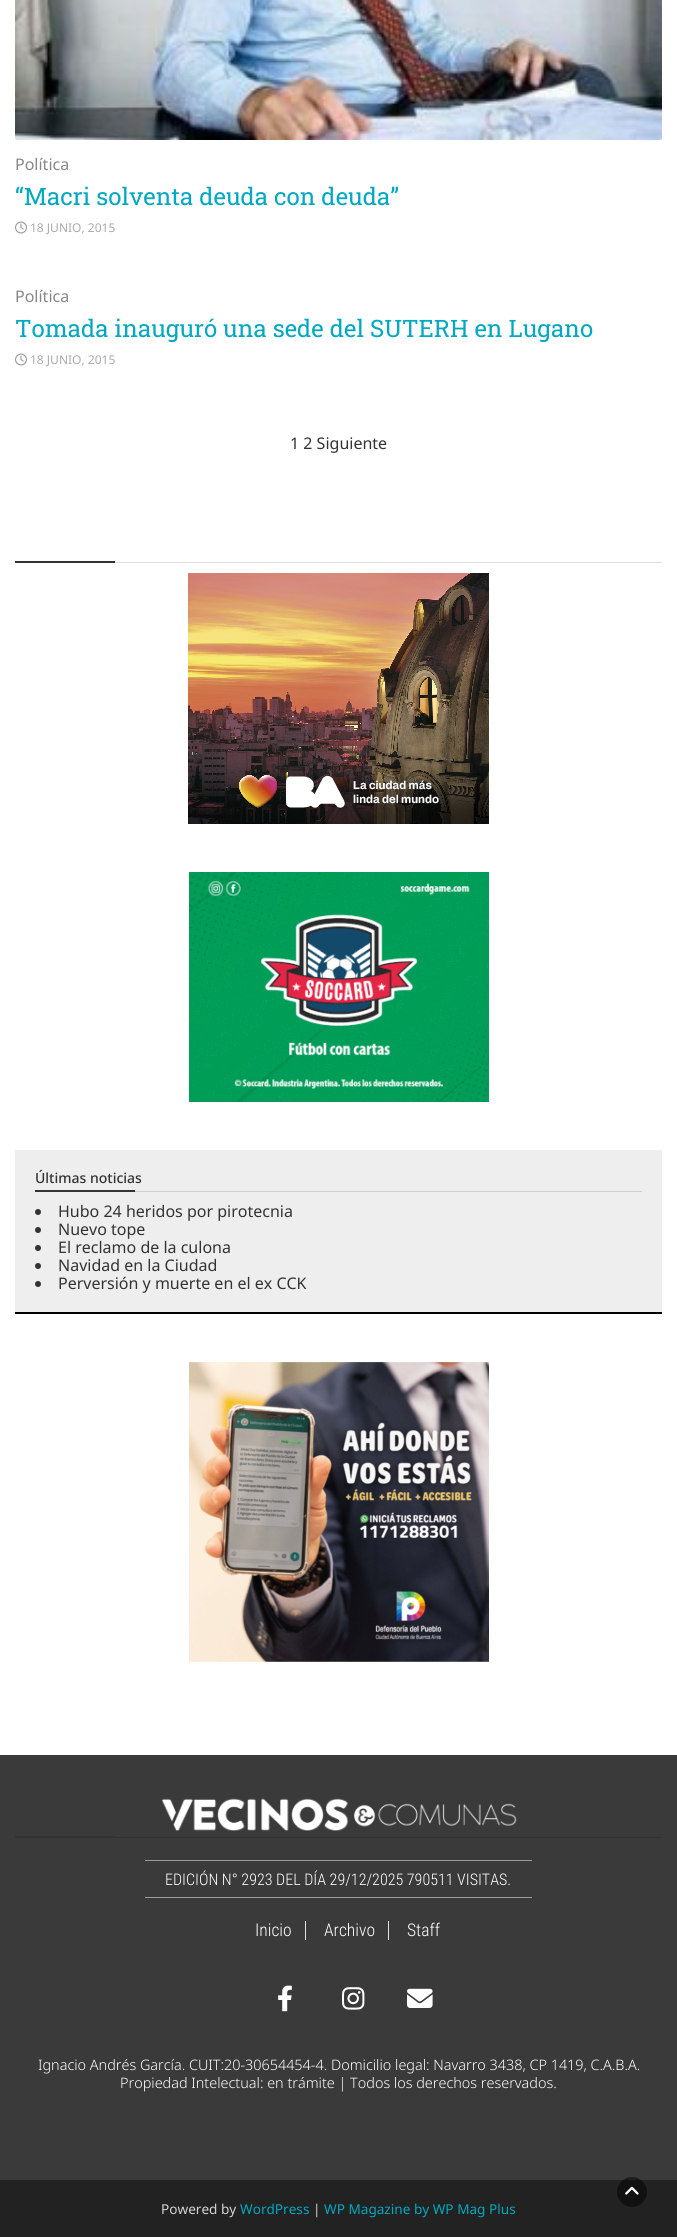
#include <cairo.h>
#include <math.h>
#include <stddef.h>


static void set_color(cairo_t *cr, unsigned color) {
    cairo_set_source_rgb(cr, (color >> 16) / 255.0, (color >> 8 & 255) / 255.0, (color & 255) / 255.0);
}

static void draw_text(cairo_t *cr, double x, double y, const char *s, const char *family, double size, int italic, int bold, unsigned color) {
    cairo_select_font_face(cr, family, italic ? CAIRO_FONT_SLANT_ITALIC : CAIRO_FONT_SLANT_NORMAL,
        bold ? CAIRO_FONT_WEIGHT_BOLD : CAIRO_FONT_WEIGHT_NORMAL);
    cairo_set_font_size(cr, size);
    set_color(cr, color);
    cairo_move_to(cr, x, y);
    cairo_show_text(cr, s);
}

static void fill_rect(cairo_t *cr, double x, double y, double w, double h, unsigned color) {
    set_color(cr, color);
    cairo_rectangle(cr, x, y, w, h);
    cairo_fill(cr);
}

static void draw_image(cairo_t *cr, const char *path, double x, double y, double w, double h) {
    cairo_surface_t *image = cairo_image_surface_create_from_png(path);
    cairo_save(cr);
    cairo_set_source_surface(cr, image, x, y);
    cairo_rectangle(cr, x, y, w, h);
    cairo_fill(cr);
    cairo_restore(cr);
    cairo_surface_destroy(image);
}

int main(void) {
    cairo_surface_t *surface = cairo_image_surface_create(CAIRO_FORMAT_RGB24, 677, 2237);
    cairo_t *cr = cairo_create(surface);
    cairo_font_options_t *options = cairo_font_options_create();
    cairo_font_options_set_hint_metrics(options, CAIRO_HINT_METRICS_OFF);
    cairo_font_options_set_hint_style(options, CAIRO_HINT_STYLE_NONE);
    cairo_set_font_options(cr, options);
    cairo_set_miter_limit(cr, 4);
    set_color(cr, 0xFFFFFF);
    cairo_paint(cr);
    draw_image(cr, "assets/img1.png", 15, 0, 647, 140);
    draw_text(cr, 15, 170, "Política", "Noto Sans", 16, 0, 0, 0x888888);
    draw_text(cr, 15, 205, "“Macri solventa deuda con deuda”", "Roboto Slab", 24, 0, 0, 0x00A8C1);
    draw_image(cr, "assets/img2.png", 15, 221, 12, 13);
    draw_text(cr, 30, 232, "18 JUNIO, 2015", "Noto Sans", 12, 0, 0, 0xAAAAAA);
    draw_text(cr, 15, 302, "Política", "Noto Sans", 16, 0, 0, 0x888888);
    draw_text(cr, 15, 337, "Tomada inauguró una sede del SUTERH en Lugano", "Roboto Slab", 24, 0, 0, 0x00A8C1);
    draw_image(cr, "assets/img2.png", 15, 353, 12, 13);
    draw_text(cr, 30, 364, "18 JUNIO, 2015", "Noto Sans", 12, 0, 0, 0xAAAAAA);
    draw_text(cr, 290, 449, "1 2 Siguiente", "Noto Sans", 16, 0, 0, 0x333333);
    fill_rect(cr, 115, 562, 547, 1, 0xDEDEDE);
    fill_rect(cr, 15, 561, 100, 2, 0x333333);
    draw_image(cr, "assets/img3.png", 188, 573, 301, 251);
    draw_image(cr, "assets/img4.png", 189, 872, 300, 230);
    fill_rect(cr, 15, 1150, 647, 162, 0xEEEEEE);
    fill_rect(cr, 15, 1312, 647, 2, 0x000000);
    fill_rect(cr, 135, 1191, 507, 1, 0xCFCFCF);
    draw_text(cr, 35, 1183, "Últimas noticias", "Noto Sans Medium", 14, 0, 0, 0x333333);
    fill_rect(cr, 35, 1190, 100, 2, 0x333333);
    cairo_new_path(cr);
    cairo_arc(cr, 38, 1212, 3, 0, 2 * M_PI);
    cairo_fill(cr);
    draw_text(cr, 58, 1217, "Hubo 24 heridos por pirotecnia", "Noto Sans", 16, 0, 0, 0x333333);
    cairo_new_path(cr);
    cairo_arc(cr, 38, 1230, 3, 0, 2 * M_PI);
    cairo_fill(cr);
    draw_text(cr, 58, 1235, "Nuevo tope", "Noto Sans", 16, 0, 0, 0x333333);
    cairo_new_path(cr);
    cairo_arc(cr, 38, 1248, 3, 0, 2 * M_PI);
    cairo_fill(cr);
    draw_text(cr, 58, 1253, "El reclamo de la culona", "Noto Sans", 16, 0, 0, 0x333333);
    cairo_new_path(cr);
    cairo_arc(cr, 38, 1266, 3, 0, 2 * M_PI);
    cairo_fill(cr);
    draw_text(cr, 58, 1271, "Navidad en la Ciudad", "Noto Sans", 16, 0, 0, 0x333333);
    cairo_new_path(cr);
    cairo_arc(cr, 38, 1284, 3, 0, 2 * M_PI);
    cairo_fill(cr);
    draw_text(cr, 58, 1289, "Perversión y muerte en el ex CCK", "Noto Sans", 16, 0, 0, 0x333333);
    draw_image(cr, "assets/img5.png", 189, 1362, 300, 300);
    fill_rect(cr, 0, 1755, 677, 425, 0x3A3A3A);
    draw_image(cr, "assets/img6.png", 161, 1798, 356, 33);
    fill_rect(cr, 115, 1837, 547, 1, 0x323232);
    fill_rect(cr, 15, 1836, 100, 2, 0x333333);
    fill_rect(cr, 145, 1860, 387, 1, 0x9D9D9D);
    fill_rect(cr, 145, 1897, 387, 1, 0x9D9D9D);
    draw_text(cr, 165, 1885, "EDICIÓN N° 2923 DEL DÍA 29/12/2025 790511 VISITAS.", "Roboto Condensed Light", 16, 0, 0, 0xFFFFFF);
    fill_rect(cr, 305, 1921, 1, 19, 0xE1E1E1);
    draw_text(cr, 255, 1936, "Inicio", "Roboto Condensed Light", 17.5, 0, 0, 0xFFFFFF);
    fill_rect(cr, 388, 1921, 1, 19, 0xE1E1E1);
    draw_text(cr, 324, 1936, "Archivo", "Roboto Condensed Light", 17.5, 0, 0, 0xFFFFFF);
    draw_text(cr, 407, 1936, "Staff", "Roboto Condensed Light", 17.5, 0, 0, 0xFFFFFF);
    draw_image(cr, "assets/img7.png", 278, 1985, 14, 27);
    draw_image(cr, "assets/img8.png", 342, 1987, 23, 23);
    draw_image(cr, "assets/img9.png", 407, 1988, 26, 20);
    draw_text(cr, 38, 2070, "Ignacio Andrés García. CUIT:20-30654454-4. Domicilio legal: Navarro 3438, CP 1419, C.A.B.A.", "Noto Sans Light", 14.4, 0, 0, 0xFFFFFF);
    draw_text(cr, 120, 2088, "Propiedad Intelectual: en trámite | Todos los derechos reservados.", "Noto Sans Light", 14.4, 0, 0, 0xFFFFFF);
    fill_rect(cr, 0, 2180, 677, 57, 0x222222);
    cairo_set_source_rgba(cr, 0, 0, 0, 0.5);
    cairo_new_path(cr);
    cairo_arc(cr, 632, 2192, 15, 0, 2 * M_PI);
    cairo_fill(cr);
    draw_image(cr, "assets/img10.png", 625, 2186, 14, 9);
    draw_text(cr, 161, 2214, "Powered by", "Noto Sans", 13.6, 0, 0, 0xD3D3D3);
    draw_text(cr, 240, 2214, "WordPress", "Noto Sans", 13.6, 0, 0, 0x00A8C1);
    draw_text(cr, 313, 2214, "|", "Noto Sans", 13.6, 0, 0, 0xD3D3D3);
    draw_text(cr, 324, 2214, "WP Magazine by WP Mag Plus", "Noto Sans", 13.6, 0, 0, 0x00A8C1);
    cairo_surface_write_to_png(surface, "output.png");
    cairo_font_options_destroy(options);
    cairo_destroy(cr);
    cairo_surface_destroy(surface);
    return 0;
}
